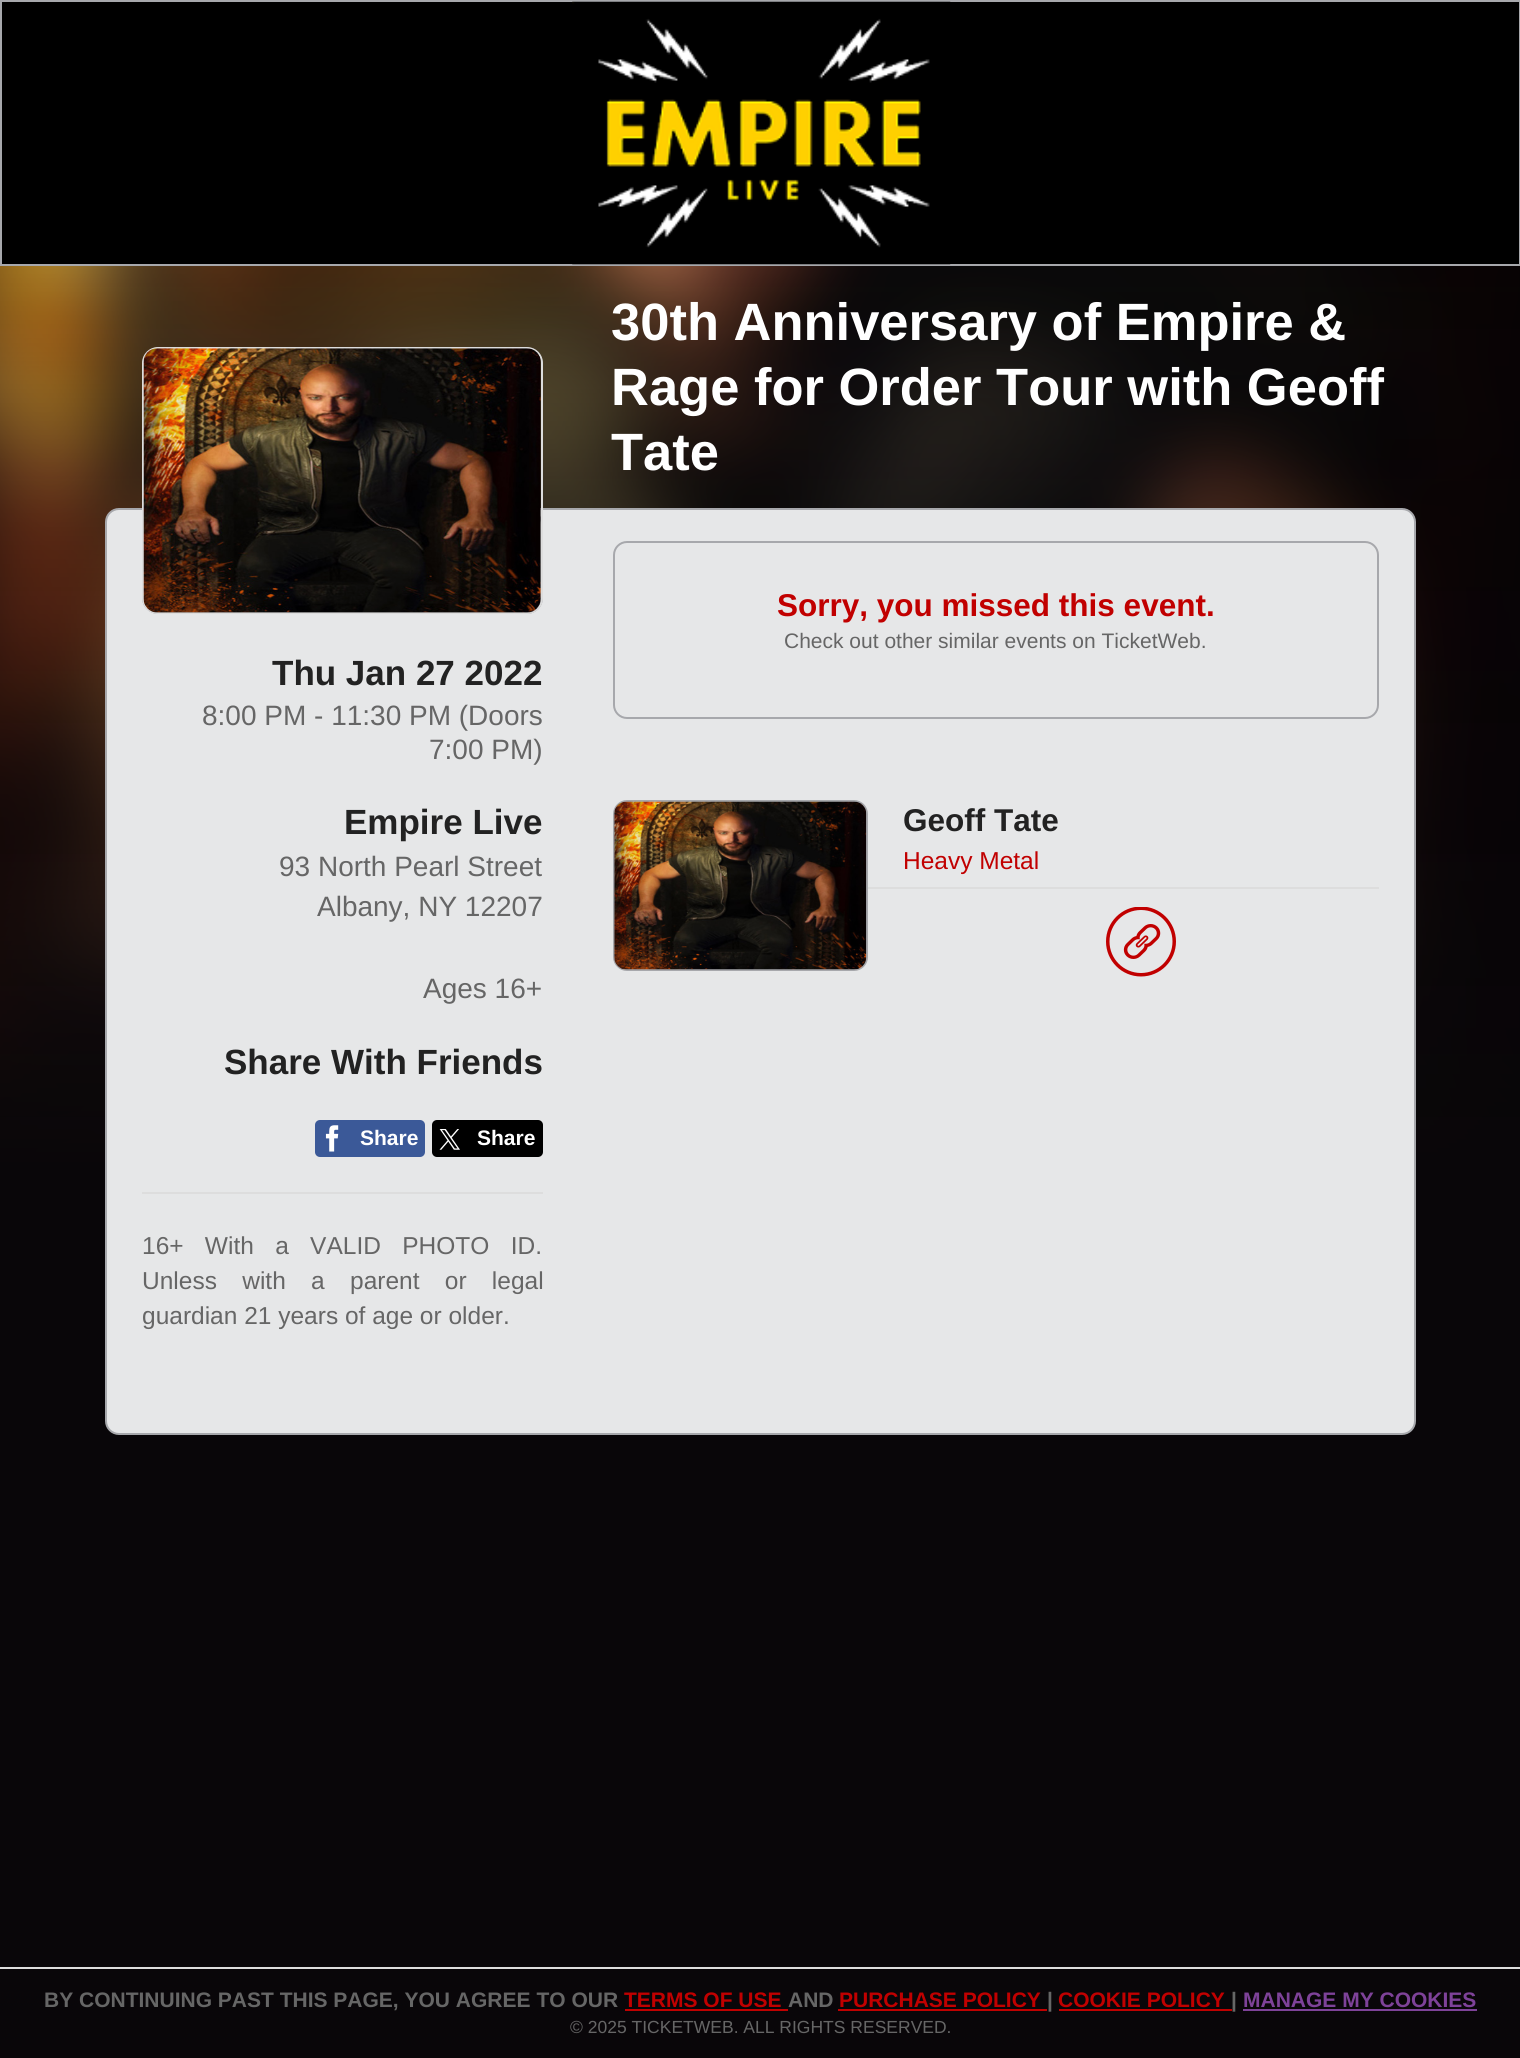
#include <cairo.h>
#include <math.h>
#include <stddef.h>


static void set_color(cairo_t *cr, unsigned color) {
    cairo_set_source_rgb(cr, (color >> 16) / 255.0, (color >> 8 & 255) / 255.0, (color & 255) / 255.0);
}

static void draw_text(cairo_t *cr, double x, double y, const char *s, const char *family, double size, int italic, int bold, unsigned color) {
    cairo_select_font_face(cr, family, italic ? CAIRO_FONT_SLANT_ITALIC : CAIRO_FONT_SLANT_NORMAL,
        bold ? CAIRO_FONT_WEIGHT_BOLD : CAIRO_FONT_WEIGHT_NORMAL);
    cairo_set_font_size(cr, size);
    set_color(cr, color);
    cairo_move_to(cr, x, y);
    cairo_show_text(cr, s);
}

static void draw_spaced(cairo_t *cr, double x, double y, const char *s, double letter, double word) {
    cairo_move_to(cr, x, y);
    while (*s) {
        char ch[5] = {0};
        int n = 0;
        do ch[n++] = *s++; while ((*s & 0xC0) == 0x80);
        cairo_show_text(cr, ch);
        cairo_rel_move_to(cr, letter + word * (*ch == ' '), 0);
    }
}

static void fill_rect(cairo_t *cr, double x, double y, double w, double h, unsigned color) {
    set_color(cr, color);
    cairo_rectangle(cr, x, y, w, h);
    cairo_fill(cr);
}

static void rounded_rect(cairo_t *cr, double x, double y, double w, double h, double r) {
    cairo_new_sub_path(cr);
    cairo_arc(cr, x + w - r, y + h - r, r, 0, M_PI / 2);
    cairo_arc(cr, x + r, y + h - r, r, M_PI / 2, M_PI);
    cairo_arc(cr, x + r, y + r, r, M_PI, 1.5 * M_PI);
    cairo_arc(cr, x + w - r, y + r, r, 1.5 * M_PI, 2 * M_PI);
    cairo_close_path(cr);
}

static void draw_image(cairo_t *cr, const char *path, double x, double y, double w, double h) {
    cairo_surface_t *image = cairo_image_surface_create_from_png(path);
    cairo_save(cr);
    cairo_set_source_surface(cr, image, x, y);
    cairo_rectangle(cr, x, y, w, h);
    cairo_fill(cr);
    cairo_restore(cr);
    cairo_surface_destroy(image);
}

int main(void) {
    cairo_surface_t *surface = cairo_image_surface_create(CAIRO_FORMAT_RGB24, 1520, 2058);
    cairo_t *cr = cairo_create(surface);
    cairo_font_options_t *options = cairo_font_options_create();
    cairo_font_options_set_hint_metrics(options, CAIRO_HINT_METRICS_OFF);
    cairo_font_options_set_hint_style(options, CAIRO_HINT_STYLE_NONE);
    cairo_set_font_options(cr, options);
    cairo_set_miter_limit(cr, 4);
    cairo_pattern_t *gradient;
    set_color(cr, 0x090609);
    cairo_paint(cr);
    set_color(cr, 0x000000);
    cairo_rectangle(cr, 1, 1, 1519, 264);
    cairo_fill_preserve(cr);
    set_color(cr, 0xA7A8AC);
    cairo_stroke(cr);
    draw_image(cr, "assets/img1.png", 572, 1, 379, 264);
    draw_image(cr, "assets/img2.png", 0, 266, 1520, 900);
    gradient = cairo_pattern_create_linear(760, 0, 760, 2058);
    cairo_pattern_add_color_stop_rgba(gradient, 0, 0.035, 0.024, 0.035, 0);
    cairo_pattern_add_color_stop_rgba(gradient, 0.57, 0.035, 0.024, 0.035, 1);
    cairo_set_source(cr, gradient);
    cairo_pattern_destroy(gradient);
    cairo_rectangle(cr, 0, 266, 1520, 900);
    cairo_fill(cr);
    set_color(cr, 0xE6E7E8);
    rounded_rect(cr, 106, 509, 1309, 925, 13);
    cairo_fill_preserve(cr);
    set_color(cr, 0xA7A8AC);
    cairo_stroke(cr);
    draw_text(cr, 611, 340, "30th Anniversary of Empire &", "Liberation Sans", 52.5, 0, 1, 0xFFFFFF);
    draw_text(cr, 611, 405, "Rage for Order Tour with Geoff", "Liberation Sans", 52.5, 0, 1, 0xFFFFFF);
    draw_text(cr, 611, 470, "Tate", "Liberation Sans", 52.5, 0, 1, 0xFFFFFF);
    rounded_rect(cr, 614, 542, 764, 176, 13);
    set_color(cr, 0xA7A8AC);
    cairo_stroke(cr);
    draw_text(cr, 777, 616, "Sorry, you missed this event.", "Liberation Sans", 31.5, 0, 1, 0xC10000);
    draw_text(cr, 784, 648, "Check out other similar events on TicketWeb.", "Liberation Sans", 21, 0, 0, 0x666666);
    rounded_rect(cr, 614, 801, 253, 169, 13);
    set_color(cr, 0xA7A8AC);
    cairo_stroke(cr);
    draw_image(cr, "assets/img3.png", 614, 801, 253, 169);
    fill_rect(cr, 868, 887, 511, 2, 0xDDDDDD);
    draw_text(cr, 903, 831, "Geoff Tate", "Liberation Sans", 31.5, 0, 1, 0x222222);
    draw_text(cr, 903, 869, "Heavy Metal", "Liberation Sans", 24.5, 0, 0, 0xC10000);
    draw_image(cr, "assets/img4.png", 1106, 907, 70, 70);
    set_color(cr, 0xE6E7E8);
    rounded_rect(cr, 143, 510, 399, 103, 15);
    cairo_fill_preserve(cr);
    set_color(cr, 0xA7A8AC);
    cairo_stroke(cr);
    rounded_rect(cr, 143, 348, 399, 265, 15);
    set_color(cr, 0xDDDDDD);
    cairo_stroke(cr);
    draw_image(cr, "assets/img5.png", 143, 348, 398, 265);
    gradient = cairo_pattern_create_linear(342, 348, 342, 613);
    cairo_pattern_add_color_stop_rgba(gradient, 0.5, 0, 0, 0, 0);
    cairo_pattern_add_color_stop_rgba(gradient, 1, 0, 0, 0, 0.2);
    cairo_set_source(cr, gradient);
    cairo_pattern_destroy(gradient);
    rounded_rect(cr, 144, 348, 397, 265, 14);
    cairo_fill(cr);
    draw_text(cr, 272, 685, "Thu Jan 27 2022", "Liberation Sans", 35, 0, 1, 0x222222);
    draw_text(cr, 202, 725, "8:00 PM - 11:30 PM (Doors", "Liberation Sans", 28, 0, 0, 0x666666);
    draw_text(cr, 429, 759, "7:00 PM)", "Liberation Sans", 28, 0, 0, 0x666666);
    draw_text(cr, 344, 834, "Empire Live", "Liberation Sans", 35, 0, 1, 0x222222);
    draw_text(cr, 279, 876, "93 North Pearl Street", "Liberation Sans", 28, 0, 0, 0x666666);
    draw_text(cr, 317, 916, "Albany, NY 12207", "Liberation Sans", 28, 0, 0, 0x666666);
    draw_text(cr, 423, 998, "Ages 16+", "Liberation Sans", 28, 0, 0, 0x666666);
    draw_text(cr, 224, 1074, "Share With Friends", "Liberation Sans", 35, 0, 1, 0x222222);
    set_color(cr, 0x3B5998);
    rounded_rect(cr, 315, 1120, 110, 37, 5);
    cairo_fill(cr);
    draw_image(cr, "assets/img6.png", 325, 1125, 14, 27);
    draw_text(cr, 360, 1145, "Share", "Liberation Sans", 21, 0, 1, 0xFFFFFF);
    set_color(cr, 0x000000);
    rounded_rect(cr, 432, 1120, 111, 37, 5);
    cairo_fill(cr);
    draw_image(cr, "assets/img7.png", 439, 1129, 21, 21);
    draw_text(cr, 477, 1145, "Share", "Liberation Sans", 21, 0, 1, 0xFFFFFF);
    fill_rect(cr, 142, 1192, 401, 2, 0xDDDDDD);
    cairo_select_font_face(cr, "Liberation Sans", CAIRO_FONT_SLANT_NORMAL, CAIRO_FONT_WEIGHT_NORMAL);
    cairo_set_font_size(cr, 24.5);
    set_color(cr, 0x666666);
    draw_spaced(cr, 142, 1254, "16+ With a VALID PHOTO ID.", 0, 14.5);
    draw_spaced(cr, 142, 1289, "Unless with a parent or legal", 0, 18.5);
    draw_text(cr, 142, 1324, "guardian 21 years of age or older.", "Liberation Sans", 24.5, 0, 0, 0x666666);
    fill_rect(cr, 0, 1967, 1520, 2, 0xDDDDDD);
    draw_text(cr, 44, 2007, "BY CONTINUING PAST THIS PAGE, YOU AGREE TO OUR", "Liberation Sans", 21, 0, 1, 0x666666);
    draw_text(cr, 624, 2007, "TERMS OF USE", "Liberation Sans", 21, 0, 1, 0xC10000);
    fill_rect(cr, 625, 2009, 163, 2, 0xC10000);
    draw_text(cr, 788, 2007, "AND", "Liberation Sans", 21, 0, 1, 0x666666);
    draw_text(cr, 839, 2007, "PURCHASE POLICY", "Liberation Sans", 21, 0, 1, 0xC10000);
    fill_rect(cr, 838, 2009, 209, 2, 0xC10000);
    draw_text(cr, 1047, 2007, "|", "Liberation Sans", 21, 0, 1, 0x666666);
    draw_text(cr, 1058, 2007, "COOKIE POLICY", "Liberation Sans", 21, 0, 1, 0xC10000);
    fill_rect(cr, 1059, 2009, 173, 2, 0xC10000);
    draw_text(cr, 1231, 2007, "|", "Liberation Sans", 21, 0, 1, 0x666666);
    draw_text(cr, 1243, 2007, "MANAGE MY COOKIES", "Liberation Sans", 21, 0, 1, 0x7E4299);
    fill_rect(cr, 1243, 2009, 234, 2, 0x7E4299);
    draw_text(cr, 570, 2033, "© 2025 TICKETWEB. ALL RIGHTS RESERVED.", "Liberation Sans", 17.5, 0, 0, 0x666666);
    cairo_surface_write_to_png(surface, "output.png");
    cairo_font_options_destroy(options);
    cairo_destroy(cr);
    cairo_surface_destroy(surface);
    return 0;
}
